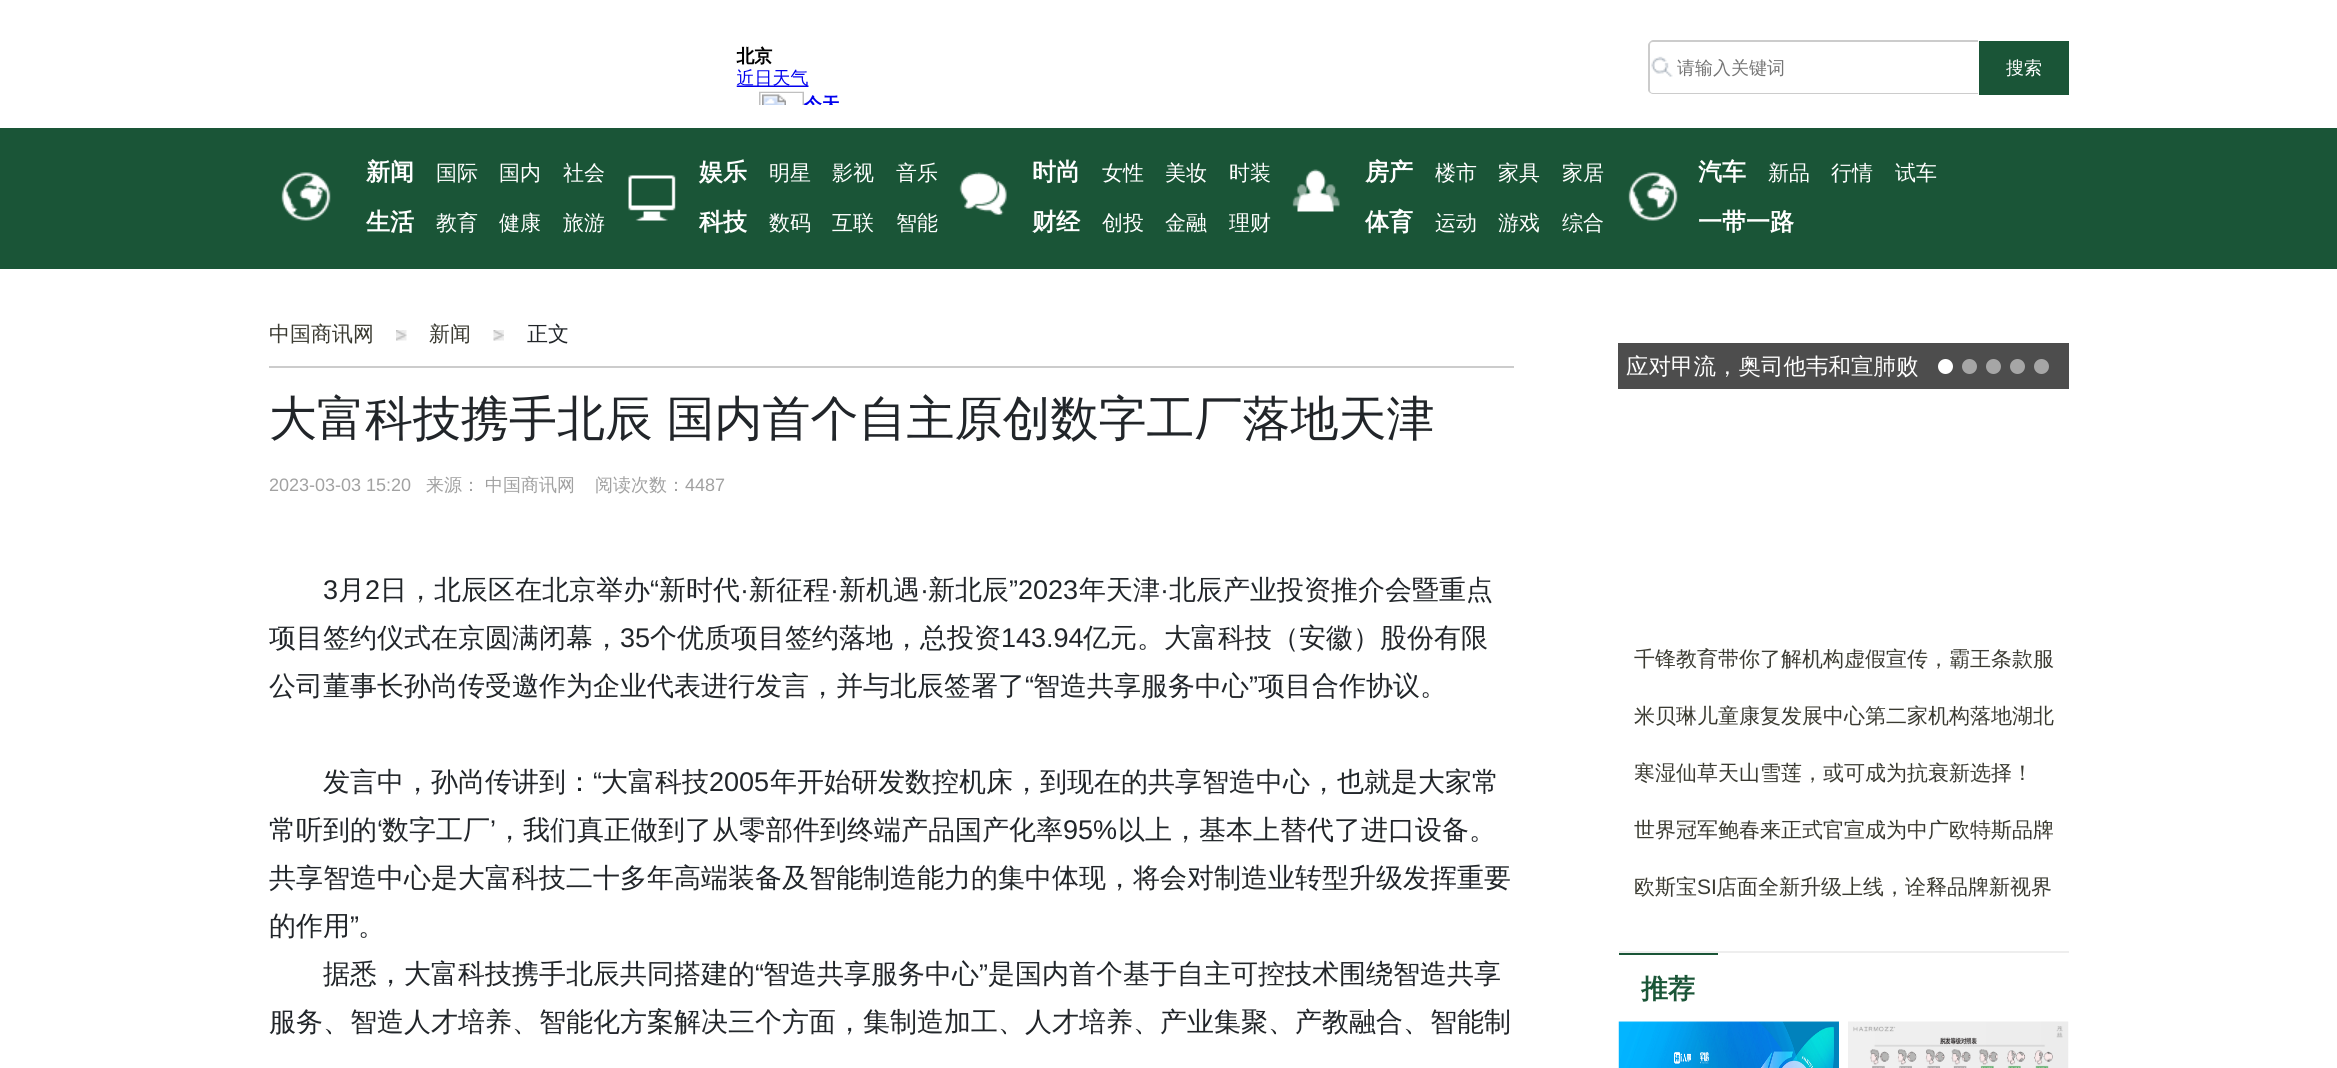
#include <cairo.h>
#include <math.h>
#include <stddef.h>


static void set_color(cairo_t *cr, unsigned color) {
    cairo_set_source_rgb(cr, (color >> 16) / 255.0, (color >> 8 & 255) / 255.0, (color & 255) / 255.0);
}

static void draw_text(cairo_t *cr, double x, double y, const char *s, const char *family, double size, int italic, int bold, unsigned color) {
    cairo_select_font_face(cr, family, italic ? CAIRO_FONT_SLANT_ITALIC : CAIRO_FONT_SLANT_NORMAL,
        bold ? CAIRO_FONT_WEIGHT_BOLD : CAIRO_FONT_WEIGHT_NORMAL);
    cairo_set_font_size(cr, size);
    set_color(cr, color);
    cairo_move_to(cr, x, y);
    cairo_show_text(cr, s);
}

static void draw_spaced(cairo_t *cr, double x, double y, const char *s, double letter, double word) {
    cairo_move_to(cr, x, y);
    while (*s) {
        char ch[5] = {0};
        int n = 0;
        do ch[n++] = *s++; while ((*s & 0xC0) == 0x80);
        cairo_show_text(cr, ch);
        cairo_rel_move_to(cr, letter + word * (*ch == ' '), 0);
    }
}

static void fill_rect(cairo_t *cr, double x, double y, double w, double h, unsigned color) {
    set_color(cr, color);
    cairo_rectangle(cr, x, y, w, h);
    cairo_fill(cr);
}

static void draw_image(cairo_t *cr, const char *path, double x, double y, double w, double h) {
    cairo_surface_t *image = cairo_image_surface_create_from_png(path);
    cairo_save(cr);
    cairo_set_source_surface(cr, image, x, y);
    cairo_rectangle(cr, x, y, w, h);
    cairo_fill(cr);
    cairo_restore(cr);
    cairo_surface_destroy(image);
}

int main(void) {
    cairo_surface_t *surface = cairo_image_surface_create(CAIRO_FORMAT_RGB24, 2337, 1068);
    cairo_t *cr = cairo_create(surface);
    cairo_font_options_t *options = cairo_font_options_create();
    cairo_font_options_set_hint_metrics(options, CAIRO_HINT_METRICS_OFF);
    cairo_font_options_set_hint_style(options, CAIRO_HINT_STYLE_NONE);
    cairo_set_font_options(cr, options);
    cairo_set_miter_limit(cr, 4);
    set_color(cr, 0xFFFFFF);
    cairo_paint(cr);
    draw_image(cr, "assets/img1.png", 736, 46, 103, 59);
    draw_image(cr, "assets/img2.png", 1651, 56, 22, 21);
    set_color(cr, 0xCCCCCC);
    cairo_set_fill_rule(cr, CAIRO_FILL_RULE_EVEN_ODD);
    cairo_new_path(cr);
    cairo_move_to(cr, 1653, 40);
    cairo_line_to(cr, 1978, 40);
    cairo_line_to(cr, 1978, 94);
    cairo_line_to(cr, 1653, 94);
    cairo_curve_to(cr, 1651, 94, 1648, 92, 1648, 90);
    cairo_line_to(cr, 1648, 45);
    cairo_curve_to(cr, 1648, 43, 1651, 40, 1653, 40);
    cairo_close_path(cr);
    cairo_move_to(cr, 1653, 42);
    cairo_line_to(cr, 1978, 42);
    cairo_line_to(cr, 1978, 93);
    cairo_line_to(cr, 1653, 93);
    cairo_curve_to(cr, 1651, 93, 1650, 92, 1650, 90);
    cairo_line_to(cr, 1650, 45);
    cairo_curve_to(cr, 1650, 43, 1651, 42, 1653, 42);
    cairo_close_path(cr);
    cairo_fill(cr);
    draw_text(cr, 1677, 74, "请输入关键词", "WenQuanYi Zen Hei Medium", 18, 0, 0, 0x757575);
    fill_rect(cr, 1979, 41, 90, 54, 0x1A5537);
    draw_text(cr, 2006, 74, "搜索", "WenQuanYi Zen Hei Medium", 18, 0, 0, 0xFFFFFF);
    fill_rect(cr, 0, 128, 2337, 141, 0x1A5537);
    draw_text(cr, 366, 180, "新闻", "WenQuanYi Zen Hei", 24, 0, 1, 0xFFFFFF);
    draw_text(cr, 436, 180, "国际", "WenQuanYi Zen Hei Medium", 21, 0, 0, 0xFFFFFF);
    draw_text(cr, 499, 180, "国内", "WenQuanYi Zen Hei Medium", 21, 0, 0, 0xFFFFFF);
    draw_text(cr, 563, 180, "社会", "WenQuanYi Zen Hei Medium", 21, 0, 0, 0xFFFFFF);
    draw_text(cr, 699, 180, "娱乐", "WenQuanYi Zen Hei", 24, 0, 1, 0xFFFFFF);
    draw_text(cr, 769, 180, "明星", "WenQuanYi Zen Hei Medium", 21, 0, 0, 0xFFFFFF);
    draw_text(cr, 832, 180, "影视", "WenQuanYi Zen Hei Medium", 21, 0, 0, 0xFFFFFF);
    draw_text(cr, 896, 180, "音乐", "WenQuanYi Zen Hei Medium", 21, 0, 0, 0xFFFFFF);
    draw_text(cr, 1032, 180, "时尚", "WenQuanYi Zen Hei", 24, 0, 1, 0xFFFFFF);
    draw_text(cr, 1102, 180, "女性", "WenQuanYi Zen Hei Medium", 21, 0, 0, 0xFFFFFF);
    draw_text(cr, 1165, 180, "美妆", "WenQuanYi Zen Hei Medium", 21, 0, 0, 0xFFFFFF);
    draw_text(cr, 1229, 180, "时装", "WenQuanYi Zen Hei Medium", 21, 0, 0, 0xFFFFFF);
    draw_text(cr, 1365, 180, "房产", "WenQuanYi Zen Hei", 24, 0, 1, 0xFFFFFF);
    draw_text(cr, 1435, 180, "楼市", "WenQuanYi Zen Hei Medium", 21, 0, 0, 0xFFFFFF);
    draw_text(cr, 1498, 180, "家具", "WenQuanYi Zen Hei Medium", 21, 0, 0, 0xFFFFFF);
    draw_text(cr, 1562, 180, "家居", "WenQuanYi Zen Hei Medium", 21, 0, 0, 0xFFFFFF);
    draw_text(cr, 1698, 180, "汽车", "WenQuanYi Zen Hei", 24, 0, 1, 0xFFFFFF);
    draw_text(cr, 1768, 180, "新品", "WenQuanYi Zen Hei Medium", 21, 0, 0, 0xFFFFFF);
    draw_text(cr, 1831, 180, "行情", "WenQuanYi Zen Hei Medium", 21, 0, 0, 0xFFFFFF);
    draw_text(cr, 1895, 180, "试车", "WenQuanYi Zen Hei Medium", 21, 0, 0, 0xFFFFFF);
    draw_text(cr, 366, 230, "生活", "WenQuanYi Zen Hei", 24, 0, 1, 0xFFFFFF);
    draw_text(cr, 436, 230, "教育", "WenQuanYi Zen Hei Medium", 21, 0, 0, 0xFFFFFF);
    draw_text(cr, 499, 230, "健康", "WenQuanYi Zen Hei Medium", 21, 0, 0, 0xFFFFFF);
    draw_text(cr, 563, 230, "旅游", "WenQuanYi Zen Hei Medium", 21, 0, 0, 0xFFFFFF);
    draw_text(cr, 699, 230, "科技", "WenQuanYi Zen Hei", 24, 0, 1, 0xFFFFFF);
    draw_text(cr, 769, 230, "数码", "WenQuanYi Zen Hei Medium", 21, 0, 0, 0xFFFFFF);
    draw_text(cr, 832, 230, "互联", "WenQuanYi Zen Hei Medium", 21, 0, 0, 0xFFFFFF);
    draw_text(cr, 896, 230, "智能", "WenQuanYi Zen Hei Medium", 21, 0, 0, 0xFFFFFF);
    draw_text(cr, 1032, 230, "财经", "WenQuanYi Zen Hei", 24, 0, 1, 0xFFFFFF);
    draw_text(cr, 1102, 230, "创投", "WenQuanYi Zen Hei Medium", 21, 0, 0, 0xFFFFFF);
    draw_text(cr, 1165, 230, "金融", "WenQuanYi Zen Hei Medium", 21, 0, 0, 0xFFFFFF);
    draw_text(cr, 1229, 230, "理财", "WenQuanYi Zen Hei Medium", 21, 0, 0, 0xFFFFFF);
    draw_text(cr, 1365, 230, "体育", "WenQuanYi Zen Hei", 24, 0, 1, 0xFFFFFF);
    draw_text(cr, 1435, 230, "运动", "WenQuanYi Zen Hei Medium", 21, 0, 0, 0xFFFFFF);
    draw_text(cr, 1498, 230, "游戏", "WenQuanYi Zen Hei Medium", 21, 0, 0, 0xFFFFFF);
    draw_text(cr, 1562, 230, "综合", "WenQuanYi Zen Hei Medium", 21, 0, 0, 0xFFFFFF);
    draw_text(cr, 1698, 230, "一带一路", "WenQuanYi Zen Hei", 24, 0, 1, 0xFFFFFF);
    draw_image(cr, "assets/img3.png", 281, 172, 50, 49);
    draw_image(cr, "assets/img4.png", 628, 175, 48, 46);
    draw_image(cr, "assets/img5.png", 959, 172, 48, 43);
    draw_image(cr, "assets/img6.png", 1292, 169, 48, 43);
    draw_image(cr, "assets/img7.png", 1628, 172, 50, 49);
    fill_rect(cr, 269, 366, 1245, 2, 0xCCCCCC);
    draw_image(cr, "assets/img8.png", 396, 330, 11, 11);
    draw_text(cr, 269, 341, "中国商讯网", "WenQuanYi Zen Hei Medium", 21, 0, 0, 0x3A3A31);
    draw_image(cr, "assets/img9.png", 493, 330, 11, 11);
    draw_text(cr, 429, 341, "新闻", "WenQuanYi Zen Hei Medium", 21, 0, 0, 0x3A3A31);
    draw_text(cr, 527, 341, "正文", "WenQuanYi Zen Hei Medium", 21, 0, 0, 0x212529);
    cairo_set_font_size(cr, 48);
    draw_spaced(cr, 269, 435, "大富科技携手北辰 国内首个自主原创数字工厂落地天津", 0, -1);
    draw_text(cr, 269, 491, "2023-03-03 15:20", "Liberation Sans", 18, 0, 0, 0xA1A1A1);
    draw_text(cr, 426, 491, "来源：", "WenQuanYi Zen Hei Medium", 18, 0, 0, 0xA1A1A1);
    draw_text(cr, 485, 491, "中国商讯网", "WenQuanYi Zen Hei Medium", 18, 0, 0, 0xA1A1A1);
    draw_text(cr, 595, 491, "阅读次数：", "WenQuanYi Zen Hei Medium", 18, 0, 0, 0xA1A1A1);
    draw_text(cr, 685, 491, "4487", "Liberation Sans", 18, 0, 0, 0xA1A1A1);
    draw_text(cr, 323, 599, "3", "Liberation Sans", 27, 0, 0, 0x212529);
    draw_text(cr, 338, 599, "月", "WenQuanYi Zen Hei Medium", 27, 0, 0, 0x212529);
    draw_text(cr, 365, 599, "2", "Liberation Sans", 27, 0, 0, 0x212529);
    draw_text(cr, 380, 599, "日，北辰区在北京举办", "WenQuanYi Zen Hei Medium", 27, 0, 0, 0x212529);
    draw_text(cr, 650, 599, "“", "Liberation Sans", 27, 0, 0, 0x212529);
    draw_text(cr, 659, 599, "新时代", "WenQuanYi Zen Hei Medium", 27, 0, 0, 0x212529);
    draw_text(cr, 740, 599, "·", "Liberation Sans", 27, 0, 0, 0x212529);
    draw_text(cr, 749, 599, "新征程", "WenQuanYi Zen Hei Medium", 27, 0, 0, 0x212529);
    draw_text(cr, 830, 599, "·", "Liberation Sans", 27, 0, 0, 0x212529);
    draw_text(cr, 839, 599, "新机遇", "WenQuanYi Zen Hei Medium", 27, 0, 0, 0x212529);
    draw_text(cr, 920, 599, "·", "Liberation Sans", 27, 0, 0, 0x212529);
    draw_text(cr, 928, 599, "新北辰", "WenQuanYi Zen Hei Medium", 27, 0, 0, 0x212529);
    draw_text(cr, 1009, 599, "”2023", "Liberation Sans", 27, 0, 0, 0x212529);
    draw_text(cr, 1079, 599, "年天津", "WenQuanYi Zen Hei Medium", 27, 0, 0, 0x212529);
    draw_text(cr, 1160, 599, "·", "Liberation Sans", 27, 0, 0, 0x212529);
    draw_text(cr, 1169, 599, "北辰产业投资推介会暨重点", "WenQuanYi Zen Hei Medium", 27, 0, 0, 0x212529);
    cairo_save(cr);
    cairo_set_fill_rule(cr, CAIRO_FILL_RULE_WINDING);
    cairo_rectangle(cr, 269, 518, 1245, 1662);
    cairo_clip(cr);
    draw_text(cr, 269, 647, "项目签约仪式在京圆满闭幕，", "WenQuanYi Zen Hei Medium", 27, 0, 0, 0x212529);
    cairo_restore(cr);
    draw_text(cr, 620, 647, "35", "Liberation Sans", 27, 0, 0, 0x212529);
    draw_text(cr, 650, 647, "个优质项目签约落地，总投资", "WenQuanYi Zen Hei Medium", 27, 0, 0, 0x212529);
    draw_text(cr, 1001, 647, "143.94", "Liberation Sans", 27, 0, 0, 0x212529);
    draw_text(cr, 1083, 647, "亿元。大富科技（安徽）股份有限", "WenQuanYi Zen Hei Medium", 27, 0, 0, 0x212529);
    draw_text(cr, 269, 695, "公司董事长孙尚传受邀作为企业代表进行发言，并与北辰签署了", "WenQuanYi Zen Hei Medium", 27, 0, 0, 0x212529);
    draw_text(cr, 1025, 695, "“", "Liberation Sans", 27, 0, 0, 0x212529);
    draw_text(cr, 1033, 695, "智造共享服务中心", "WenQuanYi Zen Hei Medium", 27, 0, 0, 0x212529);
    draw_text(cr, 1249, 695, "”", "Liberation Sans", 27, 0, 0, 0x212529);
    draw_text(cr, 1258, 695, "项目合作协议。", "WenQuanYi Zen Hei Medium", 27, 0, 0, 0x212529);
    draw_text(cr, 323, 791, "发言中，孙尚传讲到：", "WenQuanYi Zen Hei Medium", 27, 0, 0, 0x212529);
    draw_text(cr, 593, 791, "“", "Liberation Sans", 27, 0, 0, 0x212529);
    draw_text(cr, 601, 791, "大富科技", "WenQuanYi Zen Hei Medium", 27, 0, 0, 0x212529);
    draw_text(cr, 709, 791, "2005", "Liberation Sans", 27, 0, 0, 0x212529);
    draw_text(cr, 770, 791, "年开始研发数控机床，到现在的共享智造中心，也就是大家常", "WenQuanYi Zen Hei Medium", 27, 0, 0, 0x212529);
    draw_text(cr, 269, 839, "常听到的", "WenQuanYi Zen Hei Medium", 27, 0, 0, 0x212529);
    draw_text(cr, 377, 839, "‘", "Liberation Sans", 27, 0, 0, 0x212529);
    draw_text(cr, 382, 839, "数字工厂", "WenQuanYi Zen Hei Medium", 27, 0, 0, 0x212529);
    draw_text(cr, 490, 839, "’", "Liberation Sans", 27, 0, 0, 0x212529);
    draw_text(cr, 496, 839, "，我们真正做到了从零部件到终端产品国产化率", "WenQuanYi Zen Hei Medium", 27, 0, 0, 0x212529);
    draw_text(cr, 1063, 839, "95%", "Liberation Sans", 27, 0, 0, 0x212529);
    draw_text(cr, 1118, 839, "以上，基本上替代了进口设备。", "WenQuanYi Zen Hei Medium", 27, 0, 0, 0x212529);
    draw_text(cr, 269, 887, "共享智造中心是大富科技二十多年高端装备及智能制造能力的集中体现，将会对制造业转型升级发挥重要", "WenQuanYi Zen Hei Medium", 27, 0, 0, 0x212529);
    draw_text(cr, 269, 935, "的作用", "WenQuanYi Zen Hei Medium", 27, 0, 0, 0x212529);
    draw_text(cr, 350, 935, "”", "Liberation Sans", 27, 0, 0, 0x212529);
    draw_text(cr, 358, 935, "。", "WenQuanYi Zen Hei Medium", 27, 0, 0, 0x212529);
    draw_text(cr, 323, 983, "据悉，大富科技携手北辰共同搭建的", "WenQuanYi Zen Hei Medium", 27, 0, 0, 0x212529);
    draw_text(cr, 755, 983, "“", "Liberation Sans", 27, 0, 0, 0x212529);
    draw_text(cr, 763, 983, "智造共享服务中心", "WenQuanYi Zen Hei Medium", 27, 0, 0, 0x212529);
    draw_text(cr, 979, 983, "”", "Liberation Sans", 27, 0, 0, 0x212529);
    draw_text(cr, 988, 983, "是国内首个基于自主可控技术围绕智造共享", "WenQuanYi Zen Hei Medium", 27, 0, 0, 0x212529);
    draw_text(cr, 269, 1031, "服务、智造人才培养、智能化方案解决三个方面，集制造加工、人才培养、产业集聚、产教融合、智能制", "WenQuanYi Zen Hei Medium", 27, 0, 0, 0x212529);
    fill_rect(cr, 1618, 343, 451, 46, 0x4D4D4D);
    draw_text(cr, 1626, 374, "应对甲流，奥司他韦和宣肺败", "WenQuanYi Zen Hei Medium", 22.5, 0, 0, 0xFFFFFF);
    cairo_new_path(cr);
    cairo_arc(cr, 1945.5, 366.5, 7.5, 0, 2 * M_PI);
    cairo_fill(cr);
    set_color(cr, 0xA6A6A6);
    cairo_arc(cr, 1969.5, 366.5, 7.5, 0, 2 * M_PI);
    cairo_fill(cr);
    cairo_arc(cr, 1993.5, 366.5, 7.5, 0, 2 * M_PI);
    cairo_fill(cr);
    cairo_arc(cr, 2017.5, 366.5, 7.5, 0, 2 * M_PI);
    cairo_fill(cr);
    cairo_arc(cr, 2041.5, 366.5, 7.5, 0, 2 * M_PI);
    cairo_fill(cr);
    draw_text(cr, 1634, 666, "千锋教育带你了解机构虚假宣传，霸王条款服", "WenQuanYi Zen Hei Medium", 21, 0, 0, 0x3A3A31);
    draw_text(cr, 1634, 723, "米贝琳儿童康复发展中心第二家机构落地湖北", "WenQuanYi Zen Hei Medium", 21, 0, 0, 0x3A3A31);
    draw_text(cr, 1634, 780, "寒湿仙草天山雪莲，或可成为抗衰新选择！", "WenQuanYi Zen Hei Medium", 21, 0, 0, 0x3A3A31);
    draw_text(cr, 1634, 837, "世界冠军鲍春来正式官宣成为中广欧特斯品牌", "WenQuanYi Zen Hei Medium", 21, 0, 0, 0x3A3A31);
    draw_text(cr, 1634, 894, "欧斯宝", "WenQuanYi Zen Hei Medium", 21, 0, 0, 0x3A3A31);
    draw_text(cr, 1697, 894, "SI", "Liberation Sans", 21, 0, 0, 0x3A3A31);
    draw_text(cr, 1716, 894, "店面全新升级上线，诠释品牌新视界", "WenQuanYi Zen Hei Medium", 21, 0, 0, 0x3A3A31);
    fill_rect(cr, 1619, 951, 450, 2, 0xEEEEEE);
    fill_rect(cr, 1619, 953, 99, 2, 0x1A5537);
    draw_text(cr, 1641, 998, "推荐", "WenQuanYi Zen Hei", 27, 0, 1, 0x1A5537);
    draw_image(cr, "assets/img10.png", 1618, 1021, 221, 47);
    draw_image(cr, "assets/img11.png", 1848, 1021, 221, 47);
    cairo_surface_write_to_png(surface, "output.png");
    cairo_font_options_destroy(options);
    cairo_destroy(cr);
    cairo_surface_destroy(surface);
    return 0;
}
